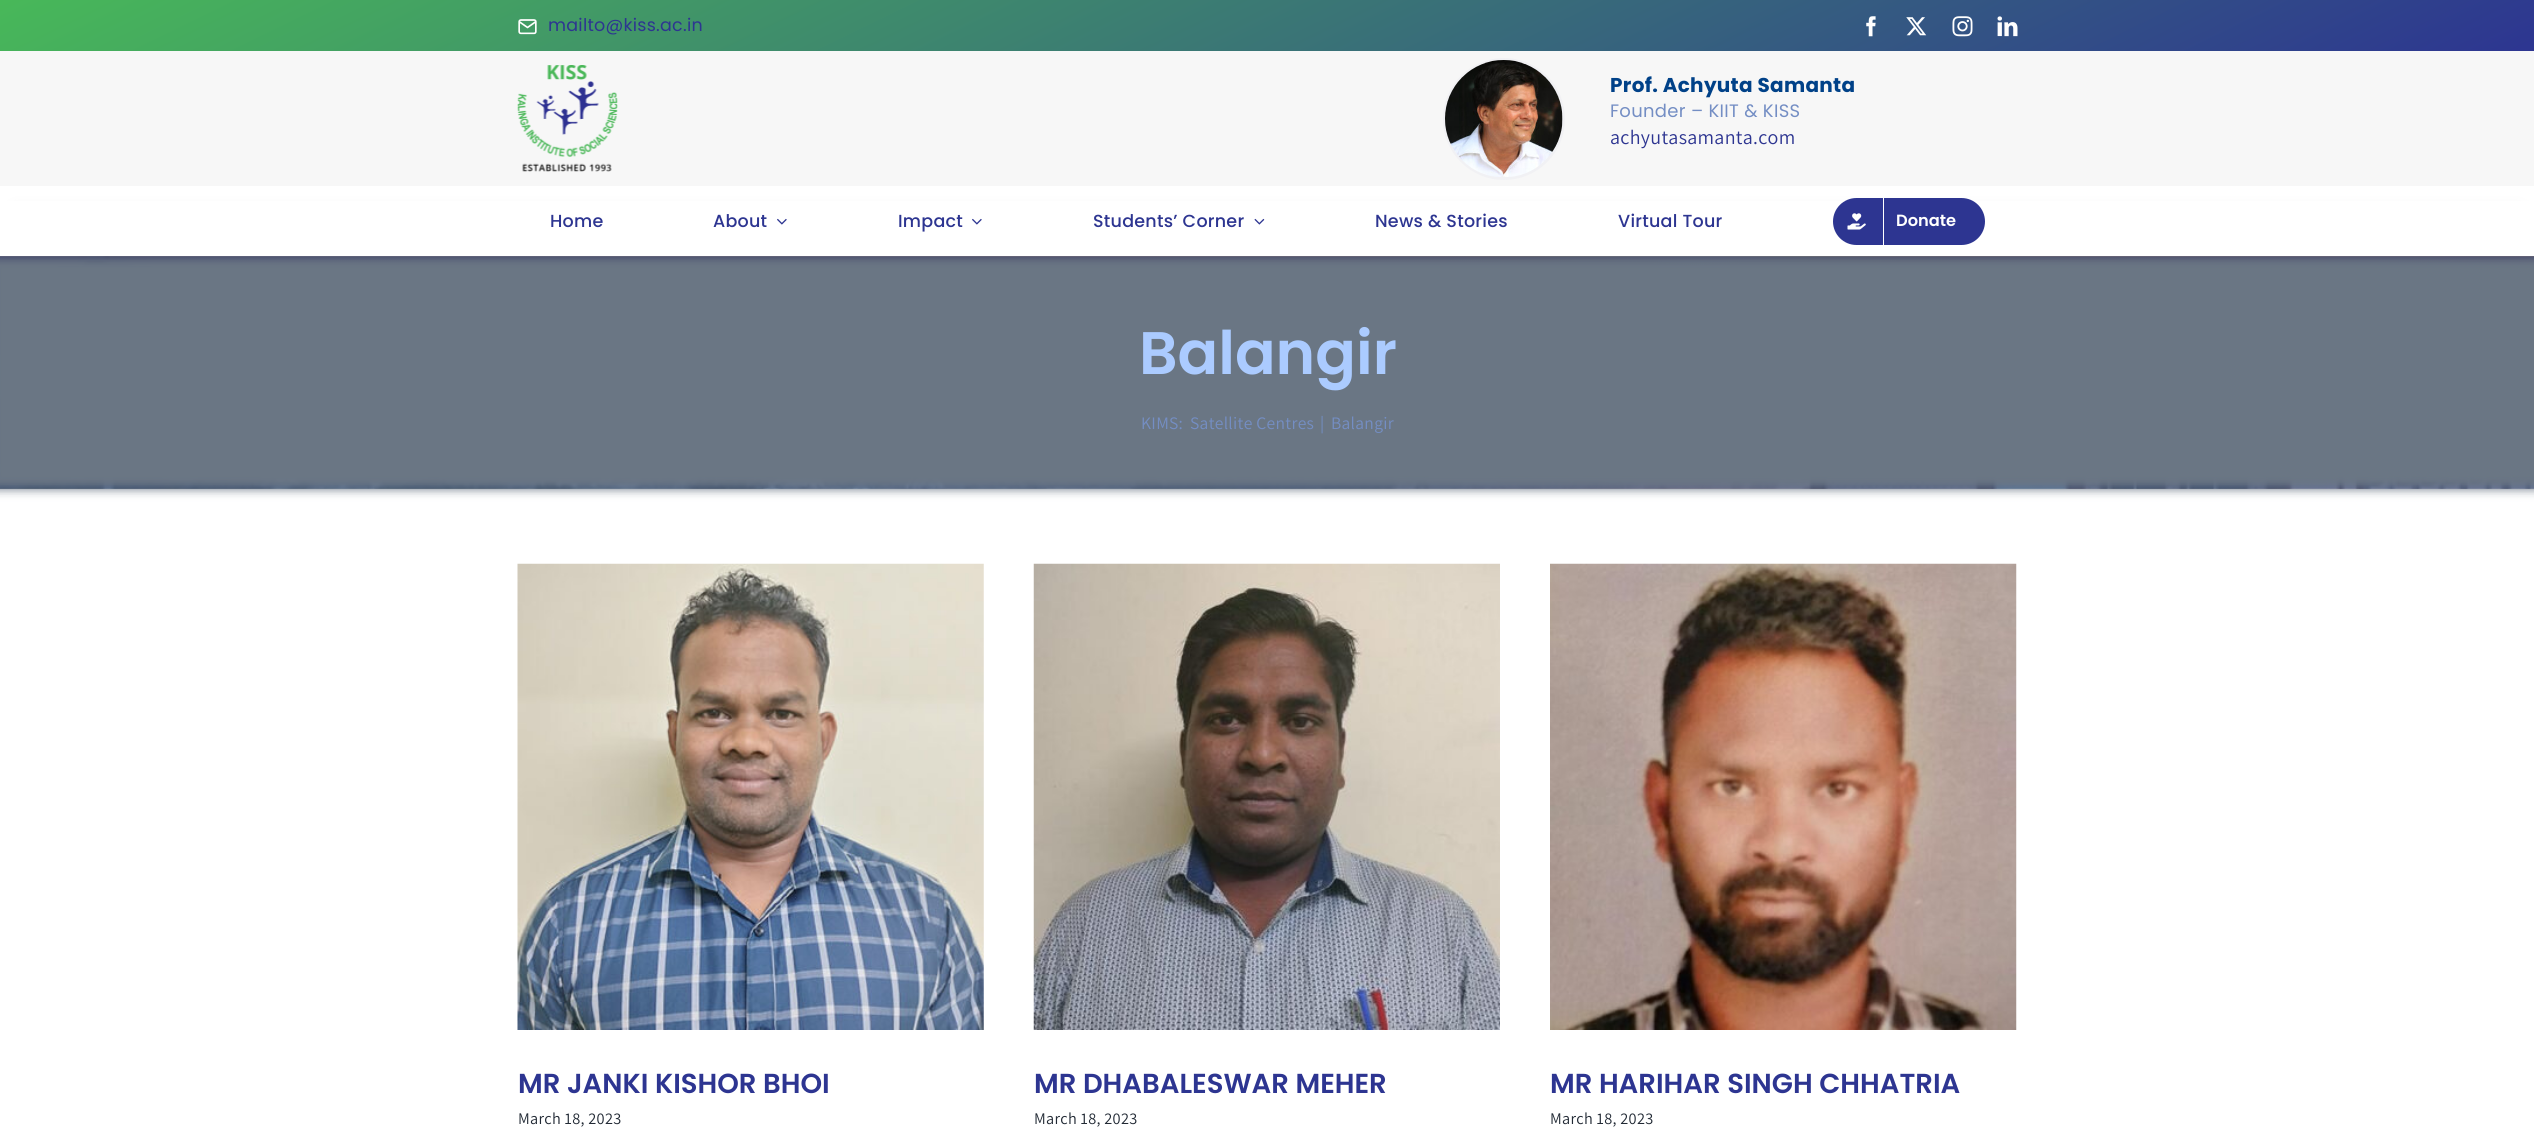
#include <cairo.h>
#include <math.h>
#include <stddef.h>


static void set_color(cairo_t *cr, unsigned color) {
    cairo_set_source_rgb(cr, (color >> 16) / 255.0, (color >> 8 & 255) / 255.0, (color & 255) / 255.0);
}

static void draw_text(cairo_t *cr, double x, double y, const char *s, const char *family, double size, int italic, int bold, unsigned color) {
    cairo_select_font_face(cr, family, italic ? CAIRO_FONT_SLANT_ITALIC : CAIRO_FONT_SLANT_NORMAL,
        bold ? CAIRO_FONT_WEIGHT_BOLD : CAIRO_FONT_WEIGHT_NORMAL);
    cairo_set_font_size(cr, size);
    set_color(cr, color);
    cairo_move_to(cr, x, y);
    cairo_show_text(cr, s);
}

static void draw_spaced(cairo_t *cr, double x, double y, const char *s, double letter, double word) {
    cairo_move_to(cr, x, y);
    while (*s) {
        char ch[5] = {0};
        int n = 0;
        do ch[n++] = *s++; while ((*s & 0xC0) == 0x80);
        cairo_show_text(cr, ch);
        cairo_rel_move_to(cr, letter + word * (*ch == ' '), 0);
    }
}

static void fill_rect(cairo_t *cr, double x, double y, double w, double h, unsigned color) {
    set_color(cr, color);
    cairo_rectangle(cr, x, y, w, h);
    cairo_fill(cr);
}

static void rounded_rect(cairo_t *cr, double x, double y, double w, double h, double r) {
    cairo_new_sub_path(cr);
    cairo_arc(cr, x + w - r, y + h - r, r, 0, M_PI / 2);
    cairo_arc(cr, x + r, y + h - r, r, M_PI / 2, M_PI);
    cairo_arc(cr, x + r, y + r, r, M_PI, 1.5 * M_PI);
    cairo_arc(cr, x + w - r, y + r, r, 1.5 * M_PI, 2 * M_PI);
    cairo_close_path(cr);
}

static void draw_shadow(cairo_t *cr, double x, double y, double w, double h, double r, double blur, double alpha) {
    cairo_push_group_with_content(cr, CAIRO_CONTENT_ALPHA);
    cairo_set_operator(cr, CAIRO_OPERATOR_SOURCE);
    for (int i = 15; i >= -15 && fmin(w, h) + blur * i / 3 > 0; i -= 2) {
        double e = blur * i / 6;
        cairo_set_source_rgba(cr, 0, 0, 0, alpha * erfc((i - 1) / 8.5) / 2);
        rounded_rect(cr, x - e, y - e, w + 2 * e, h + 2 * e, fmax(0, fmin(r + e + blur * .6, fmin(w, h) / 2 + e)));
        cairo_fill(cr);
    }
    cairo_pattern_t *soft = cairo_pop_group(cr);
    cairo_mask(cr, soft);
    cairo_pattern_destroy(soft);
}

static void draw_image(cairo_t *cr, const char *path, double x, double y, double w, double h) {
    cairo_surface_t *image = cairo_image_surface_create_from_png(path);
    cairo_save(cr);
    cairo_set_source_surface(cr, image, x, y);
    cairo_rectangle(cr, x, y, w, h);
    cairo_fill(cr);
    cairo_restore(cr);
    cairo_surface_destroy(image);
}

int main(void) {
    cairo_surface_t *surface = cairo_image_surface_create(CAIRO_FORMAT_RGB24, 2534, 1140);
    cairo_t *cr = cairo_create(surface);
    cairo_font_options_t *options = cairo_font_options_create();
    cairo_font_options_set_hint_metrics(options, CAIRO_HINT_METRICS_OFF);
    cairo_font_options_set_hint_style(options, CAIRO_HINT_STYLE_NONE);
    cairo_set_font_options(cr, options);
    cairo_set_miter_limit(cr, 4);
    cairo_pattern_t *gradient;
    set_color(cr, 0xFFFFFF);
    cairo_paint(cr);
    gradient = cairo_pattern_create_linear(1014, -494, 1521, 546);
    cairo_pattern_add_color_stop_rgba(gradient, 0, 0.282, 0.722, 0.349, 1);
    cairo_pattern_add_color_stop_rgba(gradient, 1, 0.176, 0.208, 0.569, 1);
    cairo_set_source(cr, gradient);
    cairo_pattern_destroy(gradient);
    cairo_rectangle(cr, 0, 0, 2534, 51);
    cairo_fill(cr);
    draw_image(cr, "assets/img1.png", 518, 19, 19, 16);
    cairo_select_font_face(cr, "Poppins", CAIRO_FONT_SLANT_NORMAL, CAIRO_FONT_WEIGHT_NORMAL);
    cairo_set_font_size(cr, 17.5);
    set_color(cr, 0x2D3591);
    draw_spaced(cr, 548, 31, "mailto@kiss.ac.in", 0.25, 0);
    draw_image(cr, "assets/img2.png", 1866, 16, 10, 21);
    draw_image(cr, "assets/img3.png", 1906, 17, 21, 19);
    draw_image(cr, "assets/img4.png", 1952, 16, 21, 21);
    draw_image(cr, "assets/img5.png", 1997, 16, 21, 21);
    fill_rect(cr, 0, 51, 2534, 135, 0xF7F7F7);
    draw_image(cr, "assets/img6.png", 517, 65, 101, 107);
    cairo_arc(cr, 1504, 119, 59.5, 0, 2 * M_PI);
    set_color(cr, 0xF1F1F4);
    cairo_set_line_width(cr, 3);
    cairo_stroke(cr);
    draw_image(cr, "assets/img7.png", 1445, 60, 118, 117);
    cairo_select_font_face(cr, "Poppins", CAIRO_FONT_SLANT_NORMAL, CAIRO_FONT_WEIGHT_BOLD);
    cairo_set_font_size(cr, 20);
    set_color(cr, 0x004188);
    draw_spaced(cr, 1610, 92, "Prof. Achyuta Samanta", 0.3, 0);
    cairo_select_font_face(cr, "Poppins", CAIRO_FONT_SLANT_NORMAL, CAIRO_FONT_WEIGHT_NORMAL);
    cairo_set_font_size(cr, 18);
    set_color(cr, 0x748EC4);
    draw_spaced(cr, 1610, 117, "Founder – KIIT & KISS", 0.3, 0);
    cairo_select_font_face(cr, "Assistant", CAIRO_FONT_SLANT_NORMAL, CAIRO_FONT_WEIGHT_NORMAL);
    cairo_set_font_size(cr, 20);
    set_color(cr, 0x2D3591);
    draw_spaced(cr, 1610, 144, "achyutasamanta.com", 0.3, 0);
    draw_image(cr, "assets/img11.png", 0, 256, 2534, 233);
    set_color(cr, 0x030303);
    draw_shadow(cr, 15, 214, 2505, 40, 0, 10, 0.1);
    set_color(cr, 0x6A7684);
    draw_shadow(cr, -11, 256, 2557, 233, 0, 5, 1);
    fill_rect(cr, 0, 201, 2534, 55, 0xFFFFFF);
    cairo_select_font_face(cr, "Poppins Medium", CAIRO_FONT_SLANT_NORMAL, CAIRO_FONT_WEIGHT_NORMAL);
    cairo_set_font_size(cr, 17.5);
    set_color(cr, 0x2D3591);
    draw_spaced(cr, 550, 227, "Home", 0.25, 0);
    draw_spaced(cr, 713, 227, "About", 0.25, 0);
    draw_image(cr, "assets/img8.png", 777, 218, 10, 7);
    draw_spaced(cr, 898, 227, "Impact", 0.25, 0);
    draw_image(cr, "assets/img8.png", 972, 218, 10, 7);
    draw_spaced(cr, 1093, 227, "Students’ Corner", 0.25, 0);
    draw_image(cr, "assets/img9.png", 1254, 218, 11, 7);
    draw_spaced(cr, 1375, 227, "News & Stories", 0.25, 0);
    draw_spaced(cr, 1618, 227, "Virtual Tour", 0.25, 0);
    rounded_rect(cr, 1833, 198, 152, 47, 23.5);
    cairo_fill(cr);
    fill_rect(cr, 1883, 198, 1, 47, 0xFFFFFF);
    draw_image(cr, "assets/img10.png", 1847, 213, 19, 17);
    draw_text(cr, 1896, 226, "Donate", "Poppins SemiBold", 16.25, 0, 0, 0xFFFFFF);
    draw_text(cr, 1139, 374, "Balangir", "Poppins SemiBold", 60, 0, 0, 0xABCBFF);
    cairo_select_font_face(cr, "Assistant", CAIRO_FONT_SLANT_NORMAL, CAIRO_FONT_WEIGHT_NORMAL);
    cairo_set_font_size(cr, 17.5);
    set_color(cr, 0x748EC4);
    draw_spaced(cr, 1141, 429, "KIMS:", 0.3, 0);
    draw_spaced(cr, 1190, 429, "Satellite Centres", 0.3, 0);
    draw_spaced(cr, 1320, 429, "|", 0.3, 0);
    draw_spaced(cr, 1331, 429, "Balangir", 0.3, 0);
    draw_image(cr, "assets/img12.png", 517, 563, 467, 467);
    draw_text(cr, 518, 1093, "MR JANKI KISHOR BHOI", "Poppins SemiBold", 27.5, 0, 0, 0x2D3591);
    cairo_select_font_face(cr, "Assistant", CAIRO_FONT_SLANT_NORMAL, CAIRO_FONT_WEIGHT_NORMAL);
    cairo_set_font_size(cr, 16.25);
    set_color(cr, 0x212934);
    draw_spaced(cr, 518, 1124, "March 18, 2023", 0.3, 0);
    draw_image(cr, "assets/img13.png", 1033, 563, 467, 467);
    draw_text(cr, 1034, 1093, "MR DHABALESWAR MEHER", "Poppins SemiBold", 27.5, 0, 0, 0x2D3591);
    cairo_select_font_face(cr, "Assistant", CAIRO_FONT_SLANT_NORMAL, CAIRO_FONT_WEIGHT_NORMAL);
    cairo_set_font_size(cr, 16.25);
    set_color(cr, 0x212934);
    draw_spaced(cr, 1034, 1124, "March 18, 2023", 0.3, 0);
    draw_image(cr, "assets/img14.png", 1550, 563, 467, 467);
    draw_text(cr, 1550, 1093, "MR HARIHAR SINGH CHHATRIA", "Poppins SemiBold", 27.5, 0, 0, 0x2D3591);
    cairo_select_font_face(cr, "Assistant", CAIRO_FONT_SLANT_NORMAL, CAIRO_FONT_WEIGHT_NORMAL);
    cairo_set_font_size(cr, 16.25);
    set_color(cr, 0x212934);
    draw_spaced(cr, 1550, 1124, "March 18, 2023", 0.3, 0);
    cairo_surface_write_to_png(surface, "output.png");
    cairo_font_options_destroy(options);
    cairo_destroy(cr);
    cairo_surface_destroy(surface);
    return 0;
}
